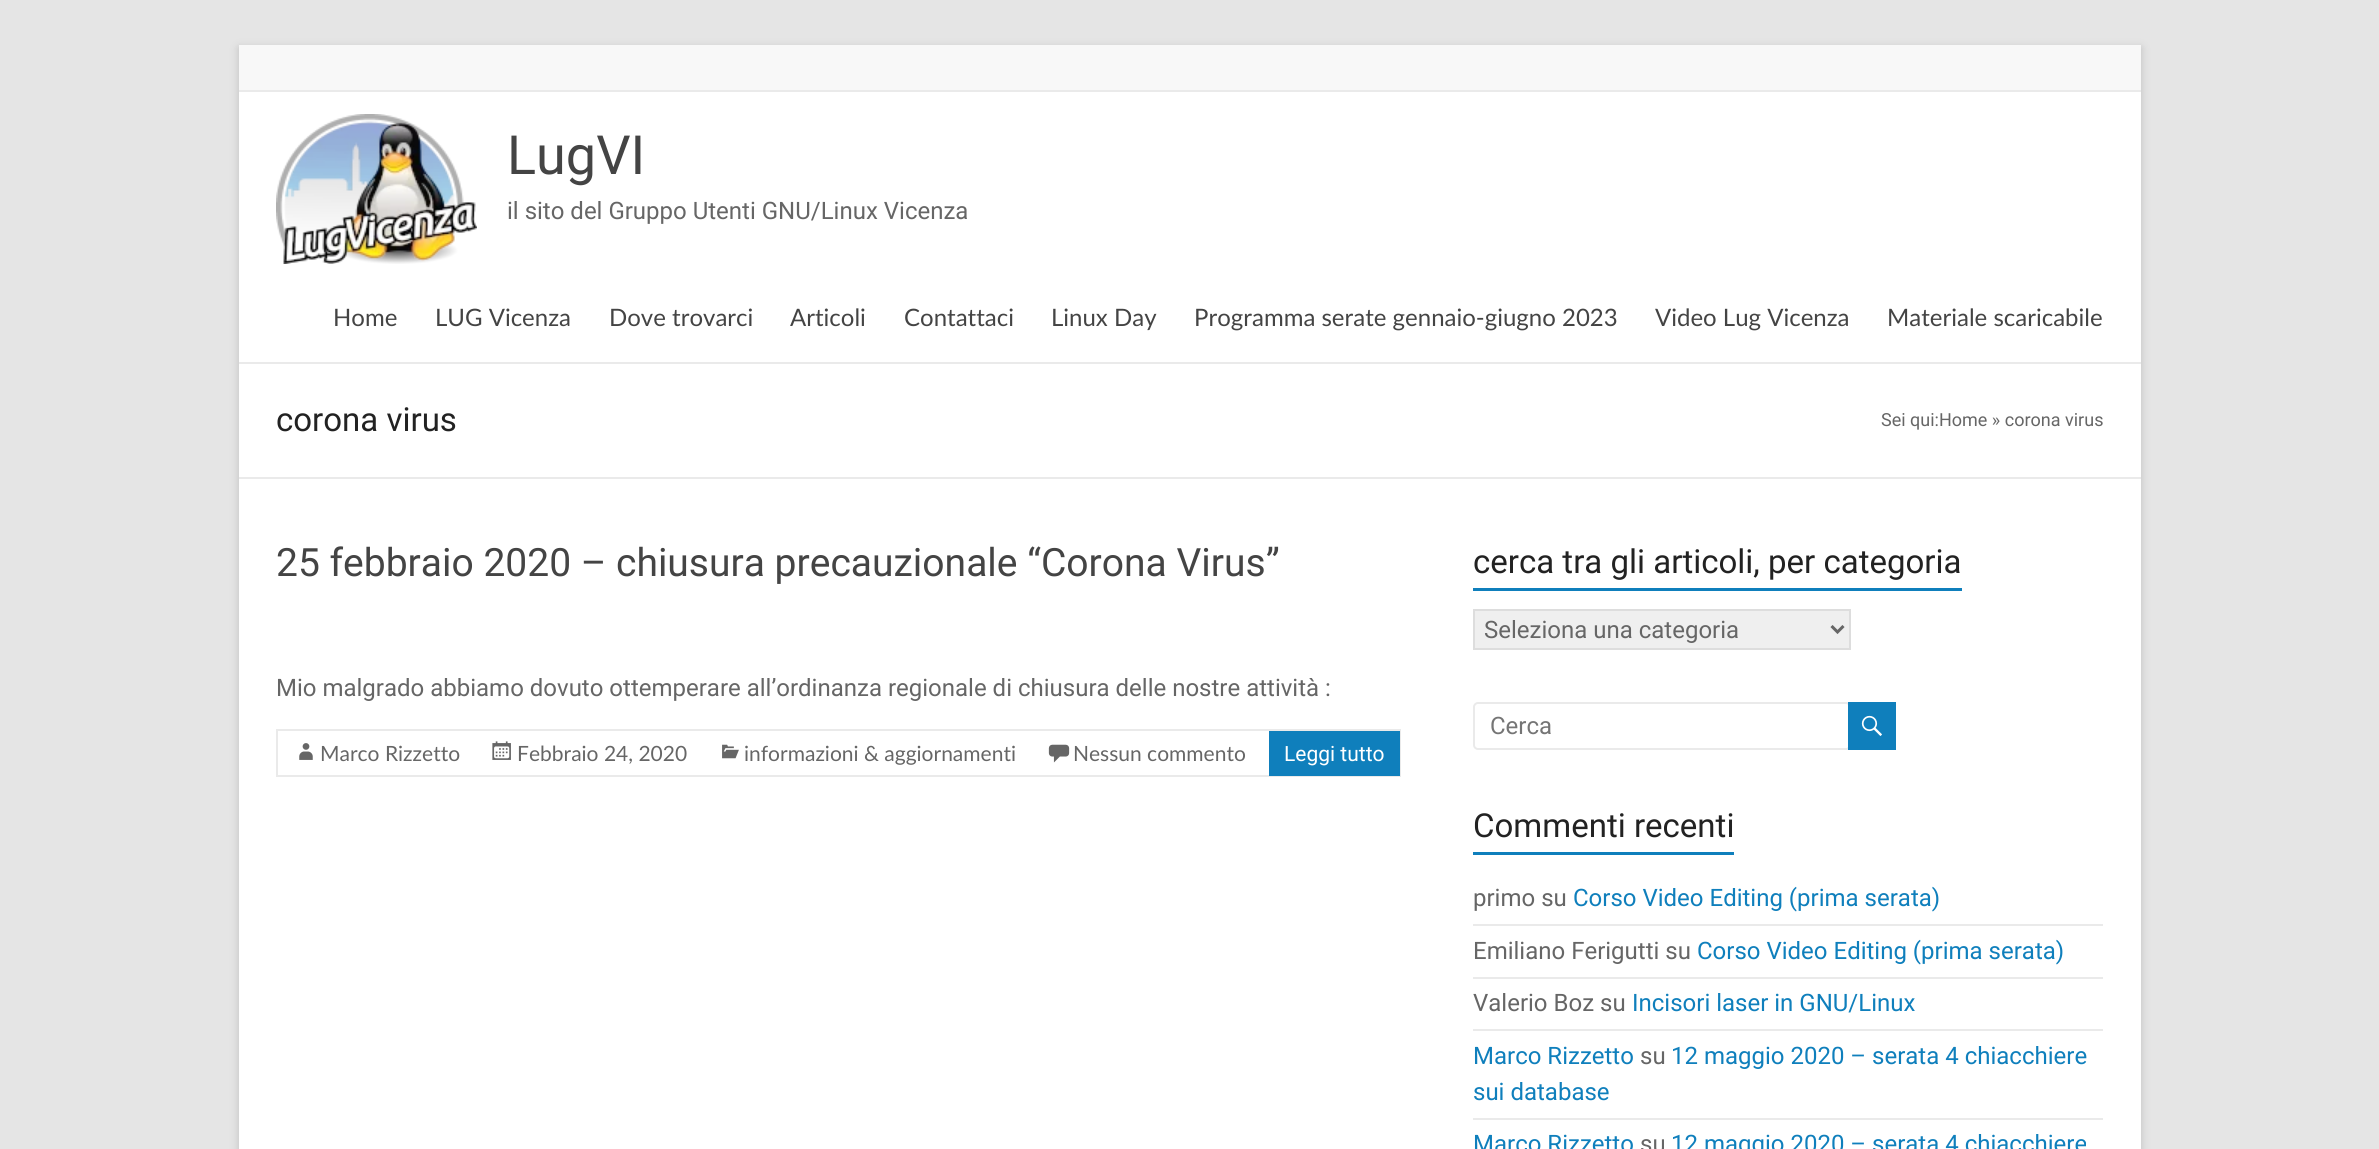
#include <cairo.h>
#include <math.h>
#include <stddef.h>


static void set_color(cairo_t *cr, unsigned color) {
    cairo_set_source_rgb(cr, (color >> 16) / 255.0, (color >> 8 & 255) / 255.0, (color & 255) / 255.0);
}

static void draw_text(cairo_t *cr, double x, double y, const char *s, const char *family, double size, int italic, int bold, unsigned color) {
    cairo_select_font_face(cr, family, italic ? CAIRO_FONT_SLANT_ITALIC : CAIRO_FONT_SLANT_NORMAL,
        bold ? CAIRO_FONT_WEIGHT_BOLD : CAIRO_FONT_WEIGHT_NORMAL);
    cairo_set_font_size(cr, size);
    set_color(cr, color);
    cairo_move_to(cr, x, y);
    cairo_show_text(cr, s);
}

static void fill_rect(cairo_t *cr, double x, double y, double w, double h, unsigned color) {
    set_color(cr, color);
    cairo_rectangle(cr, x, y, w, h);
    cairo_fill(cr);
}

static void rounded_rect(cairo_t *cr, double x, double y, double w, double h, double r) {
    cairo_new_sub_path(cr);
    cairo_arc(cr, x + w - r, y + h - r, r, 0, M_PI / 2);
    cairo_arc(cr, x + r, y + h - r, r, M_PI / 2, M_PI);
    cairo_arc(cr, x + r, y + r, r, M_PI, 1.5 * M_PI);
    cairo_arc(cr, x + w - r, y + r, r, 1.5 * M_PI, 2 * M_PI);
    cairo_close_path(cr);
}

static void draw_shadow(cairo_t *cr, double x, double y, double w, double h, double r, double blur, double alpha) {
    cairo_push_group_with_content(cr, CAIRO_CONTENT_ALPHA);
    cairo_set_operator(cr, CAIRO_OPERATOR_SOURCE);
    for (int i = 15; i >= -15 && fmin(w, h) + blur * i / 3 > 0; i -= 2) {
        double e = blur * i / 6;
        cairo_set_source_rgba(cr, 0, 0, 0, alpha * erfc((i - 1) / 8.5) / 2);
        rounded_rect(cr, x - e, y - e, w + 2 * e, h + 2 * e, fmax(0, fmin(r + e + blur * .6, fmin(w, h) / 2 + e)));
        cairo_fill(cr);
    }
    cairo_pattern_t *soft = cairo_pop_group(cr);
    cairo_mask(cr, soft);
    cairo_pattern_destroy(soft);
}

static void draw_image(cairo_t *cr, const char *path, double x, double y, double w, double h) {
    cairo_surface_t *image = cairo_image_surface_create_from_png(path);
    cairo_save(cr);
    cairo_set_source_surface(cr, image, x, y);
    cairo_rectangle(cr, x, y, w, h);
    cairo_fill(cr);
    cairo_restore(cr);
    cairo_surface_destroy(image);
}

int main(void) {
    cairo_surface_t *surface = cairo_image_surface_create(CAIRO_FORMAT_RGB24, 2379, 1149);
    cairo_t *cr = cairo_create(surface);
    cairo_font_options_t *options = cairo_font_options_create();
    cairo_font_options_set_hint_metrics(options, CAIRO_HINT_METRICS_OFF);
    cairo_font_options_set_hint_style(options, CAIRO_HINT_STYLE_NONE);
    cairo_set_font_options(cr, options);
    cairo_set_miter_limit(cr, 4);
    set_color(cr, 0xE5E5E5);
    cairo_paint(cr);
    set_color(cr, 0x646464);
    draw_shadow(cr, 239, 48, 1902, 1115, 0, 4.5, 0.3);
    fill_rect(cr, 239, 92, 1902, 1057, 0xFFFFFF);
    fill_rect(cr, 239, 45, 1902, 45, 0xF8F8F8);
    fill_rect(cr, 239, 90, 1902, 2, 0xEAEAEA);
    fill_rect(cr, 239, 362, 1902, 2, 0xEAEAEA);
    draw_image(cr, "assets/img1.png", 276, 114, 201, 150);
    draw_text(cr, 507, 174, "LugVI", "Roboto", 54, 0, 0, 0x444444);
    draw_text(cr, 507, 219, "il sito del Gruppo Utenti GNU/Linux Vicenza", "Roboto", 24, 0, 0, 0x666666);
    draw_text(cr, 333, 326, "Home", "Lato", 24, 0, 0, 0x444444);
    draw_text(cr, 435, 326, "LUG Vicenza", "Lato", 24, 0, 0, 0x444444);
    draw_text(cr, 609, 326, "Dove trovarci", "Lato", 24, 0, 0, 0x444444);
    draw_text(cr, 790, 326, "Articoli", "Lato", 24, 0, 0, 0x444444);
    draw_text(cr, 904, 326, "Contattaci", "Lato", 24, 0, 0, 0x444444);
    draw_text(cr, 1051, 326, "Linux Day", "Lato", 24, 0, 0, 0x444444);
    draw_text(cr, 1194, 326, "Programma serate gennaio-giugno 2023", "Lato", 24, 0, 0, 0x444444);
    draw_text(cr, 1655, 326, "Video Lug Vicenza", "Lato", 24, 0, 0, 0x444444);
    draw_text(cr, 1887, 326, "Materiale scaricabile", "Lato", 24, 0, 0, 0x444444);
    fill_rect(cr, 239, 477, 1902, 2, 0xEAEAEA);
    draw_text(cr, 276, 431, "corona virus", "Roboto", 33, 0, 0, 0x222222);
    draw_text(cr, 1881, 426, "Sei qui:Home » corona virus", "Roboto", 18, 0, 0, 0x666666);
    draw_text(cr, 276, 576, "25 febbraio 2020 – chiusura precauzionale “Corona Virus”", "Roboto", 39, 0, 0, 0x444444);
    draw_text(cr, 276, 696, "Mio malgrado abbiamo dovuto ottemperare all’ordinanza regionale di chiusura delle nostre attività :", "Roboto", 24, 0, 0, 0x666666);
    cairo_rectangle(cr, 277, 730, 1123, 46);
    set_color(cr, 0xEAEAEA);
    cairo_stroke(cr);
    draw_image(cr, "assets/img2.png", 299, 743, 14, 17);
    draw_text(cr, 320, 761, "Marco Rizzetto", "Lato", 21, 0, 0, 0x666666);
    draw_image(cr, "assets/img3.png", 492, 741, 19, 19);
    draw_text(cr, 517, 761, "Febbraio 24, 2020", "Lato", 21, 0, 0, 0x666666);
    draw_image(cr, "assets/img4.png", 722, 744, 17, 15);
    draw_text(cr, 744, 761, "informazioni & aggiornamenti", "Lato", 21, 0, 0, 0x666666);
    draw_image(cr, "assets/img5.png", 1048, 744, 22, 19);
    draw_text(cr, 1073, 761, "Nessun commento", "Lato", 21, 0, 0, 0x666666);
    fill_rect(cr, 1269, 731, 131, 45, 0x0F7FBC);
    draw_text(cr, 1284, 761, "Leggi tutto", "Roboto", 21, 0, 0, 0xFFFFFF);
    draw_text(cr, 1473, 573, "cerca tra gli articoli, per categoria", "Roboto", 33, 0, 0, 0x222222);
    fill_rect(cr, 1473, 588, 489, 3, 0x0F7FBC);
    set_color(cr, 0xEFEFEF);
    cairo_rectangle(cr, 1474, 610, 376, 39);
    cairo_fill_preserve(cr);
    set_color(cr, 0xDDDDDD);
    cairo_stroke(cr);
    cairo_new_path(cr);
    cairo_move_to(cr, 1831.5, 626);
    cairo_line_to(cr, 1837.5, 632);
    cairo_line_to(cr, 1843.5, 626);
    set_color(cr, 0x666666);
    cairo_set_line_width(cr, 3);
    cairo_stroke(cr);
    draw_text(cr, 1484, 638, "Seleziona una categoria", "Roboto", 24, 0, 0, 0x666666);
    rounded_rect(cr, 1474, 703, 376, 46, 4);
    set_color(cr, 0xEAEAEA);
    cairo_set_line_width(cr, 2);
    cairo_stroke(cr);
    draw_text(cr, 1490, 734, "Cerca", "Roboto", 24, 0, 0, 0x757575);
    fill_rect(cr, 1848, 702, 48, 48, 0x0F7FBC);
    draw_image(cr, "assets/img6.png", 1861, 715, 21, 21);
    draw_text(cr, 1473, 837, "Commenti recenti", "Roboto", 33, 0, 0, 0x222222);
    fill_rect(cr, 1473, 852, 261, 3, 0x0F7FBC);
    fill_rect(cr, 1473, 924, 630, 2, 0xEAEAEA);
    draw_text(cr, 1473, 906, "primo su", "Roboto", 24, 0, 0, 0x666666);
    draw_text(cr, 1573, 906, "Corso Video Editing (prima serata)", "Roboto", 24, 0, 0, 0x0F7FBC);
    fill_rect(cr, 1473, 977, 630, 2, 0xEAEAEA);
    draw_text(cr, 1473, 959, "Emiliano Ferigutti su", "Roboto", 24, 0, 0, 0x666666);
    draw_text(cr, 1697, 959, "Corso Video Editing (prima serata)", "Roboto", 24, 0, 0, 0x0F7FBC);
    fill_rect(cr, 1473, 1029, 630, 2, 0xEAEAEA);
    draw_text(cr, 1473, 1011, "Valerio Boz su", "Roboto", 24, 0, 0, 0x666666);
    draw_text(cr, 1632, 1011, "Incisori laser in GNU/Linux", "Roboto", 24, 0, 0, 0x0F7FBC);
    fill_rect(cr, 1473, 1118, 630, 2, 0xEAEAEA);
    draw_text(cr, 1473, 1064, "Marco Rizzetto", "Roboto", 24, 0, 0, 0x0F7FBC);
    draw_text(cr, 1640, 1064, "su", "Roboto", 24, 0, 0, 0x666666);
    draw_text(cr, 1671, 1064, "12 maggio 2020 – serata 4 chiacchiere", "Roboto", 24, 0, 0, 0x0F7FBC);
    draw_text(cr, 1473, 1100, "sui database", "Roboto", 24, 0, 0, 0x0F7FBC);
    draw_text(cr, 1473, 1152, "Marco Rizzetto", "Roboto", 24, 0, 0, 0x0F7FBC);
    draw_text(cr, 1640, 1152, "su", "Roboto", 24, 0, 0, 0x666666);
    draw_text(cr, 1671, 1152, "12 maggio 2020 – serata 4 chiacchiere", "Roboto", 24, 0, 0, 0x0F7FBC);
    cairo_surface_write_to_png(surface, "output.png");
    cairo_font_options_destroy(options);
    cairo_destroy(cr);
    cairo_surface_destroy(surface);
    return 0;
}
